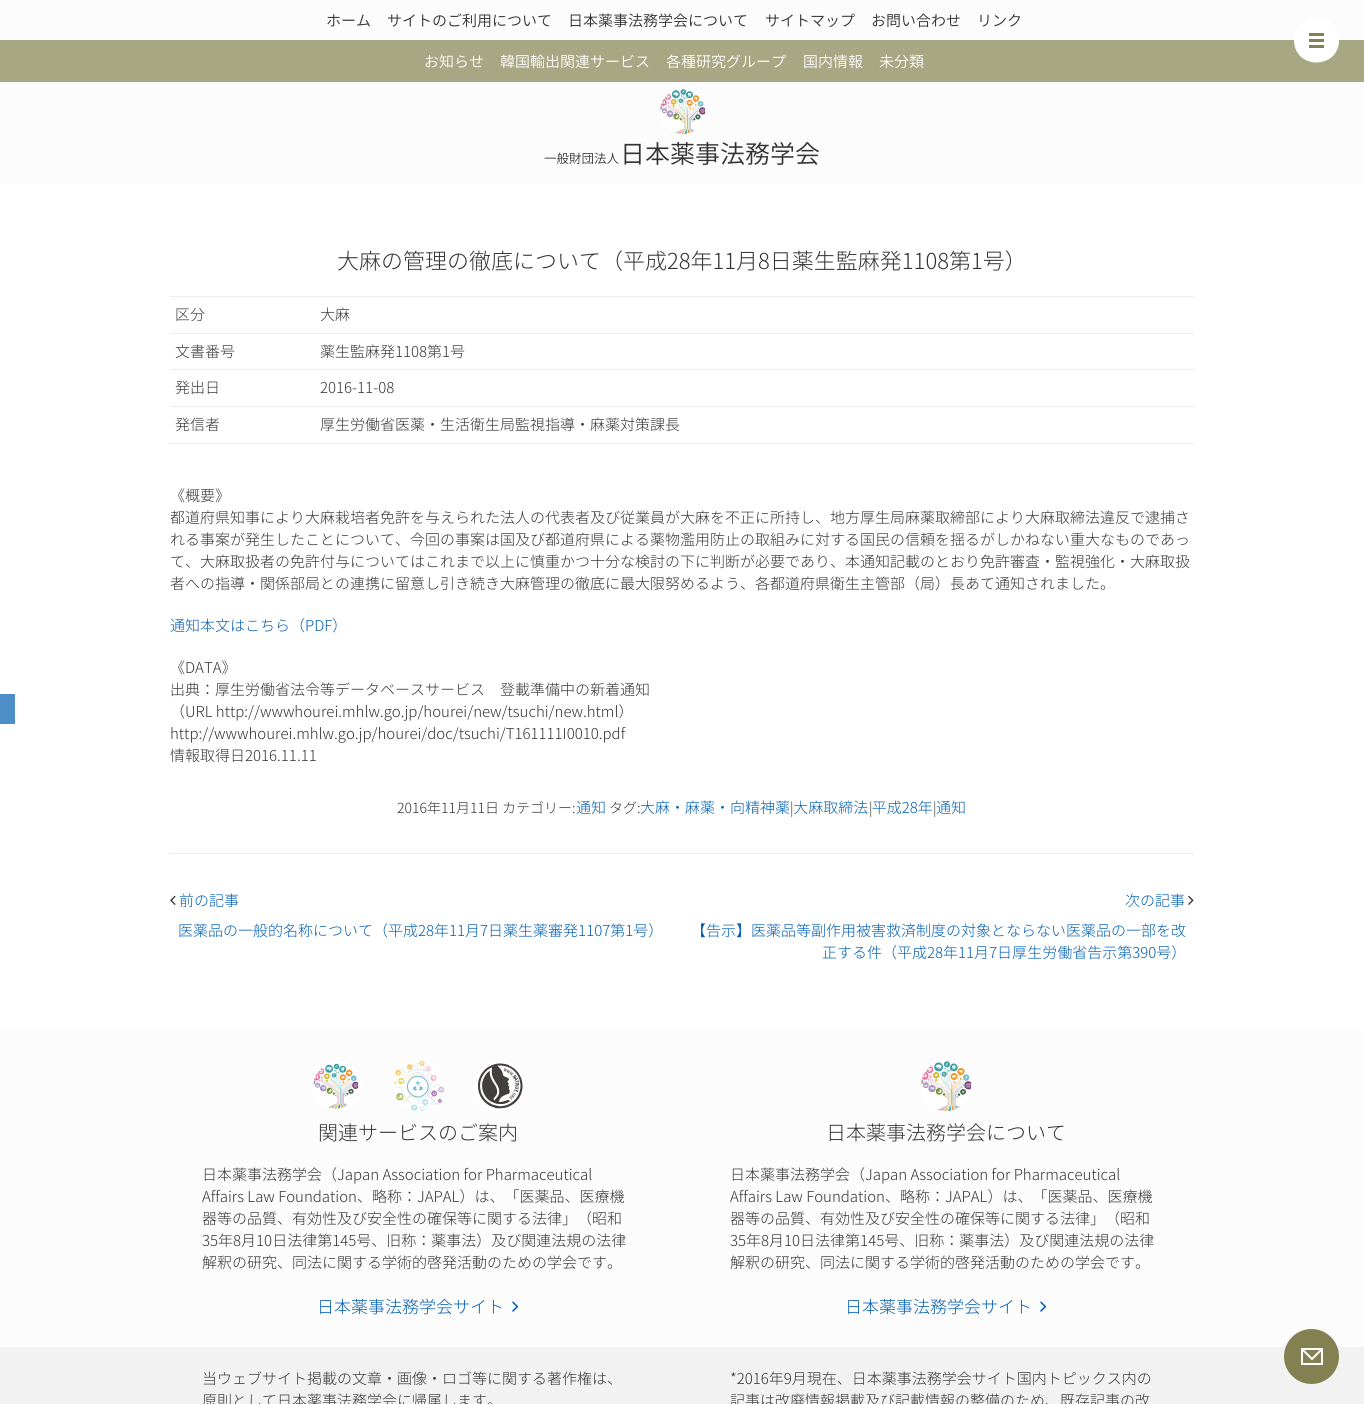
#include <cairo.h>
#include <math.h>
#include <stddef.h>


static void set_color(cairo_t *cr, unsigned color) {
    cairo_set_source_rgb(cr, (color >> 16) / 255.0, (color >> 8 & 255) / 255.0, (color & 255) / 255.0);
}

static void draw_text(cairo_t *cr, double x, double y, const char *s, const char *family, double size, int italic, int bold, unsigned color) {
    cairo_select_font_face(cr, family, italic ? CAIRO_FONT_SLANT_ITALIC : CAIRO_FONT_SLANT_NORMAL,
        bold ? CAIRO_FONT_WEIGHT_BOLD : CAIRO_FONT_WEIGHT_NORMAL);
    cairo_set_font_size(cr, size);
    set_color(cr, color);
    cairo_move_to(cr, x, y);
    cairo_show_text(cr, s);
}

static void fill_rect(cairo_t *cr, double x, double y, double w, double h, unsigned color) {
    set_color(cr, color);
    cairo_rectangle(cr, x, y, w, h);
    cairo_fill(cr);
}

static void draw_image(cairo_t *cr, const char *path, double x, double y, double w, double h) {
    cairo_surface_t *image = cairo_image_surface_create_from_png(path);
    cairo_save(cr);
    cairo_set_source_surface(cr, image, x, y);
    cairo_rectangle(cr, x, y, w, h);
    cairo_fill(cr);
    cairo_restore(cr);
    cairo_surface_destroy(image);
}

int main(void) {
    cairo_surface_t *surface = cairo_image_surface_create(CAIRO_FORMAT_RGB24, 1364, 1404);
    cairo_t *cr = cairo_create(surface);
    cairo_font_options_t *options = cairo_font_options_create();
    cairo_font_options_set_hint_metrics(options, CAIRO_HINT_METRICS_OFF);
    cairo_font_options_set_hint_style(options, CAIRO_HINT_STYLE_NONE);
    cairo_set_font_options(cr, options);
    cairo_set_miter_limit(cr, 4);
    set_color(cr, 0xFFFFFF);
    cairo_paint(cr);
    fill_rect(cr, 0, 694, 15, 30, 0x4D8EC9);
    fill_rect(cr, 0, 0, 1364, 184, 0xFCFCFC);
    draw_image(cr, "assets/img1.png", 660, 89, 45, 45);
    draw_text(cr, 326, 26, "ホーム", "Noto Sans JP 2 Light", 15, 0, 0, 0x333333);
    draw_text(cr, 387, 26, "サイトのご利用について", "Noto Sans JP 2 Light", 15, 0, 0, 0x333333);
    draw_text(cr, 568, 26, "日本薬事法務学会について", "Noto Sans JP 2 Light", 15, 0, 0, 0x333333);
    draw_text(cr, 765, 26, "サイトマップ", "Noto Sans JP 2 Light", 15, 0, 0, 0x333333);
    draw_text(cr, 871, 26, "お問い合わせ", "Noto Sans JP 2 Light", 15, 0, 0, 0x333333);
    draw_text(cr, 977, 26, "リンク", "Noto Sans JP 2 Light", 15, 0, 0, 0x333333);
    fill_rect(cr, 0, 40, 1364, 42, 0xA7A784);
    draw_text(cr, 424, 67, "お知らせ", "Noto Sans JP 2 Light", 15, 0, 0, 0xFFFFFF);
    draw_text(cr, 500, 67, "韓国輸出関連サービス", "Noto Sans JP 2 Light", 15, 0, 0, 0xFFFFFF);
    draw_text(cr, 666, 67, "各種研究グループ", "Noto Sans JP 2 Light", 15, 0, 0, 0xFFFFFF);
    draw_text(cr, 803, 67, "国内情報", "Noto Sans JP 2 Light", 15, 0, 0, 0xFFFFFF);
    draw_text(cr, 879, 67, "未分類", "Noto Sans JP 2 Light", 15, 0, 0, 0xFFFFFF);
    draw_text(cr, 544, 163, "一般財団法人", "Noto Sans JP 2 Light", 12.5, 0, 0, 0x333333);
    draw_text(cr, 620, 163, "日本薬事法務学会", "Noto Sans JP 2 Light", 25, 0, 0, 0x333333);
    fill_rect(cr, 170, 853, 1024, 1, 0xECECEC);
    draw_text(cr, 337, 269, "大麻の管理の徹底について（平成28年11月8日薬生監麻発1108第1号）", "Noto Sans JP Light", 22, 0, 0, 0x333333);
    fill_rect(cr, 170, 443, 1024, 1, 0xEEEEEE);
    draw_text(cr, 175, 320, "区分", "Noto Sans JP Light", 15, 0, 0, 0x333333);
    fill_rect(cr, 170, 296, 1024, 1, 0xEEEEEE);
    draw_text(cr, 320, 320, "大麻", "Noto Sans JP Light", 15, 0, 0, 0x333333);
    draw_text(cr, 175, 357, "文書番号", "Noto Sans JP Light", 15, 0, 0, 0x333333);
    fill_rect(cr, 170, 333, 1024, 1, 0xEEEEEE);
    draw_text(cr, 320, 357, "薬生監麻発1108第1号", "Noto Sans JP Light", 15, 0, 0, 0x333333);
    draw_text(cr, 175, 393, "発出日", "Noto Sans JP Light", 15, 0, 0, 0x333333);
    fill_rect(cr, 170, 369, 1024, 1, 0xEEEEEE);
    draw_text(cr, 320, 393, "2016-11-08", "Noto Sans JP Light", 15, 0, 0, 0x333333);
    draw_text(cr, 175, 430, "発信者", "Noto Sans JP Light", 15, 0, 0, 0x333333);
    fill_rect(cr, 170, 406, 1024, 1, 0xEEEEEE);
    draw_text(cr, 320, 430, "厚生労働省医薬・生活衛生局監視指導・麻薬対策課長", "Noto Sans JP Light", 15, 0, 0, 0x333333);
    draw_text(cr, 170, 501, "《概要》", "Noto Sans JP Light", 15, 0, 0, 0x333333);
    draw_text(cr, 170, 523, "都道府県知事により大麻栽培者免許を与えられた法人の代表者及び従業員が大麻を不正に所持し、地方厚生局麻薬取締部により大麻取締法違反で逮捕さ", "Noto Sans JP Light", 15, 0, 0, 0x333333);
    draw_text(cr, 170, 545, "れる事案が発生したことについて、今回の事案は国及び都道府県による薬物濫用防止の取組みに対する国民の信頼を揺るがしかねない重大なものであっ", "Noto Sans JP Light", 15, 0, 0, 0x333333);
    draw_text(cr, 170, 567, "て、大麻取扱者の免許付与についてはこれまで以上に慎重かつ十分な検討の下に判断が必要であり、本通知記載のとおり免許審査・監視強化・大麻取扱", "Noto Sans JP Light", 15, 0, 0, 0x333333);
    draw_text(cr, 170, 589, "者への指導・関係部局との連携に留意し引き続き大麻管理の徹底に最大限努めるよう、各都道府県衛生主管部（局）長あて通知されました。", "Noto Sans JP Light", 15, 0, 0, 0x333333);
    draw_text(cr, 170, 631, "通知本文はこちら（PDF）", "Noto Sans JP Light", 15, 0, 0, 0x005DB2);
    draw_text(cr, 170, 673, "《DATA》", "Noto Sans JP Light", 15, 0, 0, 0x333333);
    draw_text(cr, 170, 695, "出典：厚生労働省法令等データベースサービス　登載準備中の新着通知", "Noto Sans JP Light", 15, 0, 0, 0x333333);
    draw_text(cr, 170, 717, "（URL http://wwwhourei.mhlw.go.jp/hourei/new/tsuchi/new.html）", "Noto Sans JP Light", 15, 0, 0, 0x333333);
    draw_text(cr, 170, 739, "http://wwwhourei.mhlw.go.jp/hourei/doc/tsuchi/T161111I0010.pdf", "Noto Sans JP Light", 15, 0, 0, 0x333333);
    draw_text(cr, 170, 761, "情報取得日2016.11.11", "Noto Sans JP Light", 15, 0, 0, 0x333333);
    draw_text(cr, 397, 813, "2016年11月11日 カテゴリー:", "Noto Sans JP Light", 14, 0, 0, 0x333333);
    draw_text(cr, 576, 813, "通知", "Noto Sans JP Light", 15, 0, 0, 0x005DB2);
    draw_text(cr, 609, 813, "タグ:", "Noto Sans JP Light", 14, 0, 0, 0x333333);
    draw_text(cr, 640, 813, "大麻・麻薬・向精神薬 大麻取締法 平成28年 通知", "Noto Sans JP Light", 15, 0, 0, 0x005DB2);
    draw_text(cr, 790, 813, "|", "Noto Sans JP Light", 14, 0, 0, 0x333333);
    draw_text(cr, 869, 813, "|", "Noto Sans JP Light", 14, 0, 0, 0x333333);
    draw_text(cr, 933, 813, "|", "Noto Sans JP Light", 14, 0, 0, 0x333333);
    draw_image(cr, "assets/img2.png", 170, 895, 6, 10);
    draw_text(cr, 179, 906, "前の記事", "Noto Sans JP Light", 15, 0, 0, 0x005DB2);
    draw_text(cr, 1125, 906, "次の記事", "Noto Sans JP Light", 15, 0, 0, 0x005DB2);
    draw_image(cr, "assets/img3.png", 1188, 895, 6, 10);
    draw_text(cr, 178, 936, "医薬品の一般的名称について（平成28年11月7日薬生薬審発1107第1号）", "Noto Sans JP Light", 15, 0, 0, 0x005DB2);
    draw_text(cr, 691, 936, "【告示】医薬品等副作用被害救済制度の対象とならない医薬品の一部を改", "Noto Sans JP Light", 15, 0, 0, 0x005DB2);
    draw_text(cr, 822, 958, "正する件（平成28年11月7日厚生労働省告示第390号）", "Noto Sans JP Light", 15, 0, 0, 0x005DB2);
    fill_rect(cr, 0, 1031, 1364, 316, 0xFCFCFC);
    draw_image(cr, "assets/img4.png", 313, 1061, 210, 50);
    draw_text(cr, 318, 1140, "関連サービスのご案内", "Noto Sans JP Light", 20, 0, 0, 0x333333);
    draw_text(cr, 202, 1180, "日本薬事法務学会（Japan Association for Pharmaceutical", "Noto Sans JP Light", 15, 0, 0, 0x333333);
    draw_text(cr, 202, 1202, "Affairs Law Foundation、略称：JAPAL）は、「医薬品、医療機", "Noto Sans JP Light", 15, 0, 0, 0x333333);
    draw_text(cr, 202, 1224, "器等の品質、有効性及び安全性の確保等に関する法律」（昭和", "Noto Sans JP Light", 15, 0, 0, 0x333333);
    draw_text(cr, 202, 1246, "35年8月10日法律第145号、旧称：薬事法）及び関連法規の法律", "Noto Sans JP Light", 15, 0, 0, 0x333333);
    draw_text(cr, 202, 1268, "解釈の研究、同法に関する学術的啓発活動のための学会です。", "Noto Sans JP Light", 15, 0, 0, 0x333333);
    draw_text(cr, 317, 1313, "日本薬事法務学会サイト", "Noto Sans JP Light", 17, 0, 0, 0x005DB2);
    draw_image(cr, "assets/img5.png", 512, 1301, 7, 11);
    draw_image(cr, "assets/img6.png", 921, 1061, 50, 50);
    draw_text(cr, 826, 1140, "日本薬事法務学会について", "Noto Sans JP Light", 20, 0, 0, 0x333333);
    draw_text(cr, 730, 1180, "日本薬事法務学会（Japan Association for Pharmaceutical", "Noto Sans JP Light", 15, 0, 0, 0x333333);
    draw_text(cr, 730, 1202, "Affairs Law Foundation、略称：JAPAL）は、「医薬品、医療機", "Noto Sans JP Light", 15, 0, 0, 0x333333);
    draw_text(cr, 730, 1224, "器等の品質、有効性及び安全性の確保等に関する法律」（昭和", "Noto Sans JP Light", 15, 0, 0, 0x333333);
    draw_text(cr, 730, 1246, "35年8月10日法律第145号、旧称：薬事法）及び関連法規の法律", "Noto Sans JP Light", 15, 0, 0, 0x333333);
    draw_text(cr, 730, 1268, "解釈の研究、同法に関する学術的啓発活動のための学会です。", "Noto Sans JP Light", 15, 0, 0, 0x333333);
    draw_text(cr, 845, 1313, "日本薬事法務学会サイト", "Noto Sans JP Light", 17, 0, 0, 0x005DB2);
    draw_image(cr, "assets/img5.png", 1040, 1301, 7, 11);
    fill_rect(cr, 0, 1347, 1364, 57, 0xF2F2F2);
    draw_text(cr, 202, 1384, "当ウェブサイト掲載の文章・画像・ロゴ等に関する著作権は、", "Noto Sans JP Light", 15, 0, 0, 0x333333);
    draw_text(cr, 202, 1406, "原則として日本薬事法務学会に帰属します。", "Noto Sans JP Light", 15, 0, 0, 0x333333);
    draw_text(cr, 730, 1384, "*2016年9月現在、日本薬事法務学会サイト国内トピックス内の", "Noto Sans JP Light", 15, 0, 0, 0x333333);
    draw_text(cr, 730, 1406, "記事は改廃情報掲載及び記載情報の整備のため、既存記事の改", "Noto Sans JP Light", 15, 0, 0, 0x333333);
    set_color(cr, 0xFFFFFF);
    cairo_set_fill_rule(cr, CAIRO_FILL_RULE_EVEN_ODD);
    cairo_new_path(cr);
    cairo_move_to(cr, 1294, 40);
    cairo_curve_to(cr, 1294, 11, 1339, 11, 1339, 40);
    cairo_curve_to(cr, 1339, 70, 1294, 70, 1294, 40);
    cairo_close_path(cr);
    cairo_fill(cr);
    fill_rect(cr, 1309, 33, 15, 3, 0x838151);
    fill_rect(cr, 1309, 39, 15, 3, 0x838151);
    fill_rect(cr, 1309, 45, 15, 3, 0x838151);
    cairo_arc(cr, 1311.5, 1356.5, 27.5, 0, 2 * M_PI);
    cairo_fill(cr);
    cairo_new_path(cr);
    cairo_move_to(cr, 1303, 1350);
    cairo_line_to(cr, 1312, 1359);
    cairo_line_to(cr, 1321, 1350);
    set_color(cr, 0xFFFFFF);
    cairo_set_line_cap(cr, CAIRO_LINE_CAP_SQUARE);
    cairo_stroke(cr);
    cairo_rectangle(cr, 1302, 1349, 20, 15);
    cairo_set_line_cap(cr, CAIRO_LINE_CAP_BUTT);
    cairo_stroke(cr);
    cairo_surface_write_to_png(surface, "output.png");
    cairo_font_options_destroy(options);
    cairo_destroy(cr);
    cairo_surface_destroy(surface);
    return 0;
}
